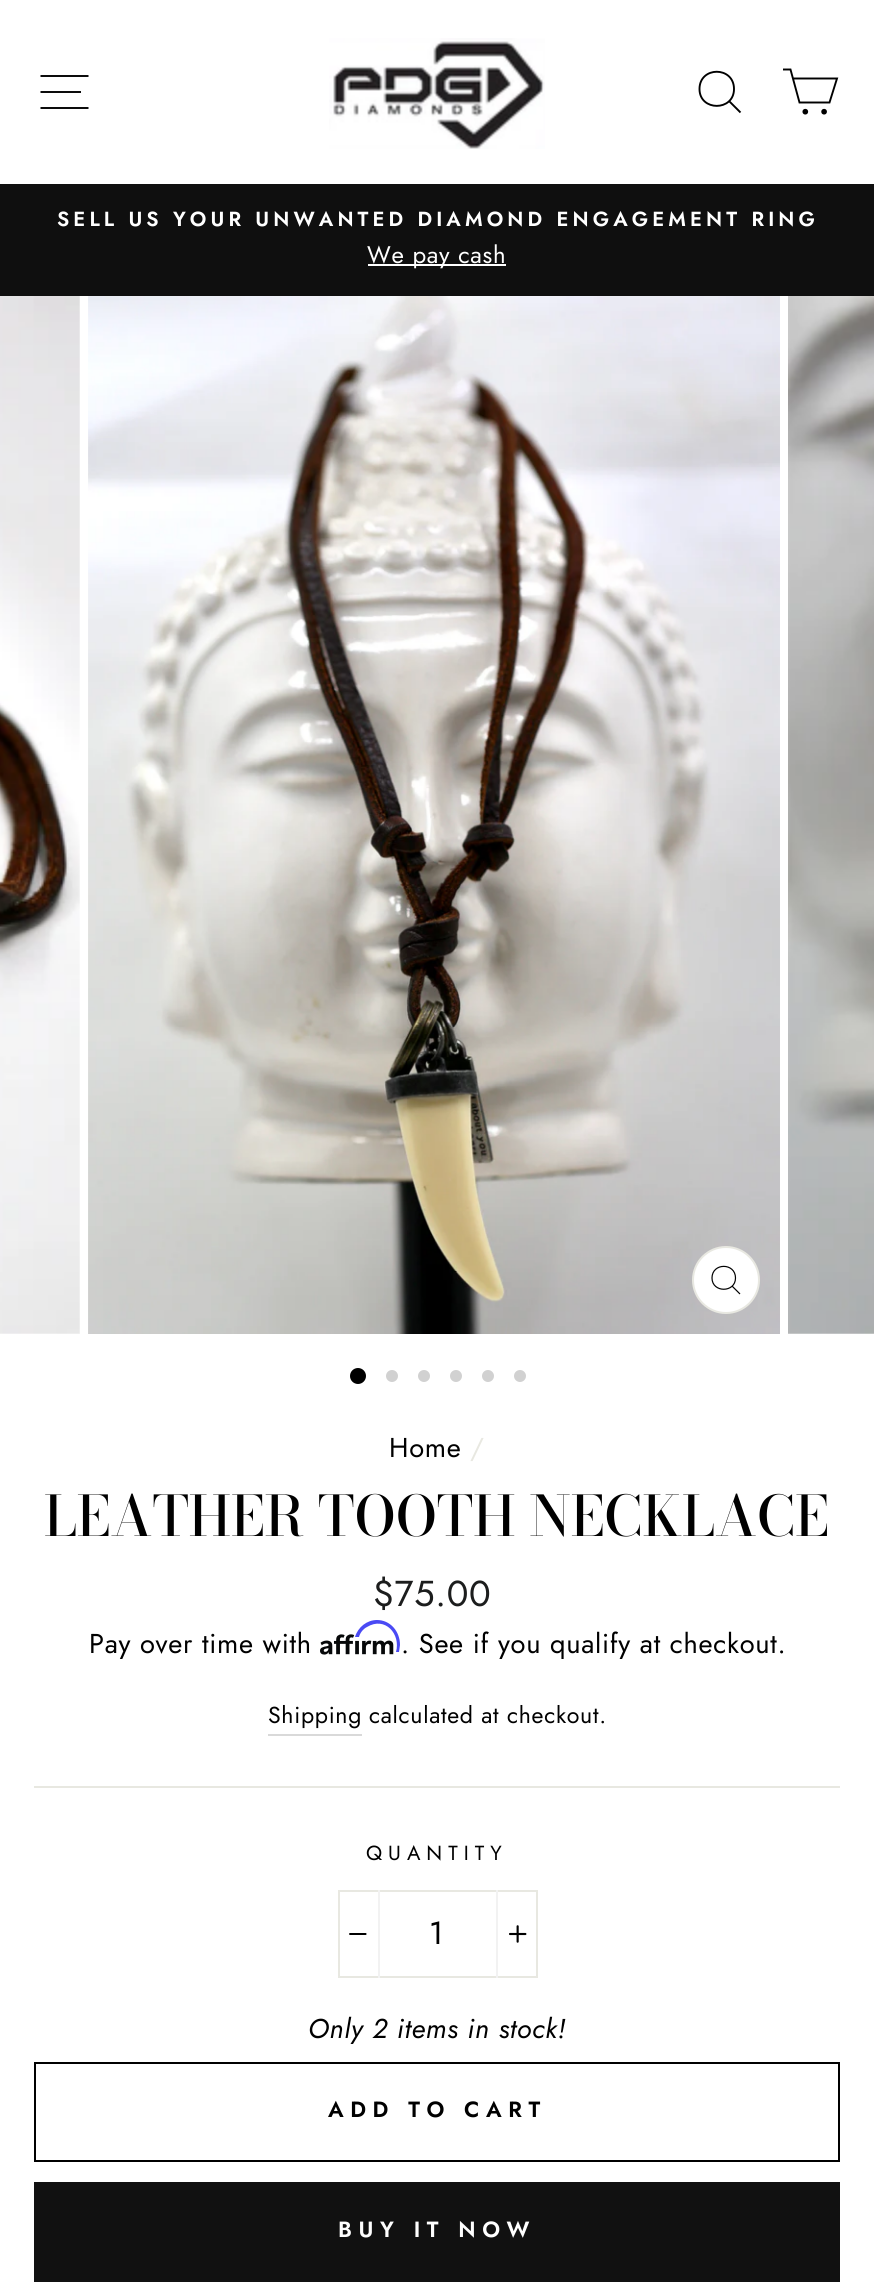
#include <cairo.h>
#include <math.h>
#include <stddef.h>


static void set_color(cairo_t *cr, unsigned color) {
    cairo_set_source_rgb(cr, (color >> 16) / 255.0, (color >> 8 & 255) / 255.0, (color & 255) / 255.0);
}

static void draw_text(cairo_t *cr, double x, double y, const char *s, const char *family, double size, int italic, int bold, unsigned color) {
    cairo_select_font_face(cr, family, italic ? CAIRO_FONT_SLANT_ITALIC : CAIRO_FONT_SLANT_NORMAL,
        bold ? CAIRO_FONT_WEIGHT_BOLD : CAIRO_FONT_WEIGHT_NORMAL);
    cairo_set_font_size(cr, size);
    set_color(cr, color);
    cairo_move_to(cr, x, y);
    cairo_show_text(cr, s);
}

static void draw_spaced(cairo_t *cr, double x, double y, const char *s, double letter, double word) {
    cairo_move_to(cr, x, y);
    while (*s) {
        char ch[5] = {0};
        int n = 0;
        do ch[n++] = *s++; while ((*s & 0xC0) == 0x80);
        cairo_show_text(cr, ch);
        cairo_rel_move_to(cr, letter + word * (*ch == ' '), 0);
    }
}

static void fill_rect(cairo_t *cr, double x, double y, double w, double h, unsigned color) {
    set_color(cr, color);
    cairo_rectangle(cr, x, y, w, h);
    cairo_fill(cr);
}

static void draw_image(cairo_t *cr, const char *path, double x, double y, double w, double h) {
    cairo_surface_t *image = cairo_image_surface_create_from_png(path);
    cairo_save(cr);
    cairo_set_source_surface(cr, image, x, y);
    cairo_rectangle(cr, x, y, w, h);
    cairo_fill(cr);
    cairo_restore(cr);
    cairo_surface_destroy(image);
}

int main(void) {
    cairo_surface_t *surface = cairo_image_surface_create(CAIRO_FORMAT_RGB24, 874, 2289);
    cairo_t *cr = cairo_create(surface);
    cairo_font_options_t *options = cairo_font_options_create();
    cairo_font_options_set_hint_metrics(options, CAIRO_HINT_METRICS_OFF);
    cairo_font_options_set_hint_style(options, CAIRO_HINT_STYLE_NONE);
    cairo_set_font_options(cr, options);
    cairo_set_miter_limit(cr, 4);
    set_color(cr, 0xFFFFFF);
    cairo_paint(cr);
    cairo_new_path(cr);
    cairo_move_to(cr, 40.5, 76);
    cairo_line_to(cr, 88.5, 76);
    cairo_move_to(cr, 40.5, 92);
    cairo_line_to(cr, 81, 92);
    cairo_move_to(cr, 40.5, 108);
    cairo_line_to(cr, 88.5, 108);
    set_color(cr, 0x000000);
    cairo_set_line_width(cr, 1.9);
    cairo_stroke(cr);
    draw_image(cr, "assets/img1.png", 329, 38, 216, 111);
    cairo_new_path(cr);
    cairo_move_to(cr, 734, 89);
    cairo_curve_to(cr, 734, 111.5, 699.5, 111.5, 699.5, 89);
    cairo_curve_to(cr, 699.5, 66, 734, 66, 734, 89);
    cairo_close_path(cr);
    cairo_move_to(cr, 740.5, 112.5);
    cairo_line_to(cr, 729.5, 101.5);
    cairo_stroke(cr);
    cairo_new_path(cr);
    cairo_move_to(cr, 793, 78.5);
    cairo_line_to(cr, 837, 78.5);
    cairo_line_to(cr, 829.5, 102.5);
    cairo_line_to(cr, 799.5, 102.5);
    cairo_line_to(cr, 790.5, 69.5);
    cairo_line_to(cr, 783, 69.5);
    cairo_stroke(cr);
    cairo_arc(cr, 805.3, 111.7, 1.9, 0, 2 * M_PI);
    cairo_fill_preserve(cr);
    cairo_stroke(cr);
    cairo_arc(cr, 824.1, 111.7, 1.9, 0, 2 * M_PI);
    cairo_fill_preserve(cr);
    cairo_stroke(cr);
    fill_rect(cr, 0, 184, 874, 112, 0x0F0F0F);
    cairo_select_font_face(cr, "Jost SemiBold", CAIRO_FONT_SLANT_NORMAL, CAIRO_FONT_WEIGHT_NORMAL);
    cairo_set_font_size(cr, 20.4);
    set_color(cr, 0xFFFFFF);
    draw_spaced(cr, 57, 226, "SELL US YOUR UNWANTED DIAMOND ENGAGEMENT RING", 4.1, 0);
    fill_rect(cr, 368, 264, 138, 2, 0xFFFFFF);
    cairo_select_font_face(cr, "Jost", CAIRO_FONT_SLANT_NORMAL, CAIRO_FONT_WEIGHT_NORMAL);
    cairo_set_font_size(cr, 24);
    draw_spaced(cr, 367, 263, "We pay cash", 0.7, 0);
    draw_image(cr, "assets/img2.png", 0, 296, 80, 1038);
    draw_image(cr, "assets/img3.png", 88, 296, 692, 1038);
    cairo_arc(cr, 726, 1280, 33, 0, 2 * M_PI);
    cairo_fill_preserve(cr);
    set_color(cr, 0xE8E8E1);
    cairo_set_line_width(cr, 2);
    cairo_stroke(cr);
    cairo_new_path(cr);
    cairo_move_to(cr, 735.5, 1278);
    cairo_curve_to(cr, 735.5, 1293, 712, 1293, 712, 1278);
    cairo_curve_to(cr, 712, 1262.5, 735.5, 1262.5, 735.5, 1278);
    cairo_close_path(cr);
    cairo_move_to(cr, 740, 1294);
    cairo_line_to(cr, 732, 1286);
    set_color(cr, 0x000000);
    cairo_set_line_width(cr, 1.2);
    cairo_stroke(cr);
    draw_image(cr, "assets/img4.png", 788, 296, 86, 1038);
    cairo_arc(cr, 358, 1376, 8, 0, 2 * M_PI);
    cairo_fill(cr);
    set_color(cr, 0xD1D1D1);
    cairo_arc(cr, 392, 1376, 6, 0, 2 * M_PI);
    cairo_fill(cr);
    cairo_arc(cr, 424, 1376, 6, 0, 2 * M_PI);
    cairo_fill(cr);
    cairo_arc(cr, 456, 1376, 6, 0, 2 * M_PI);
    cairo_fill(cr);
    cairo_arc(cr, 488, 1376, 6, 0, 2 * M_PI);
    cairo_fill(cr);
    cairo_arc(cr, 520, 1376, 6, 0, 2 * M_PI);
    cairo_fill(cr);
    cairo_set_font_size(cr, 27.25);
    set_color(cr, 0x000000);
    draw_spaced(cr, 389, 1457, "Home", 0.7, 0);
    set_color(cr, 0xE8E8E1);
    draw_spaced(cr, 470, 1457, "/", 0.7, 0);
    draw_text(cr, 44, 1536, "LEATHER TOOTH NECKLACE", "Bodoni Moda Medium", 55.5, 0, 0, 0x000000);
    cairo_select_font_face(cr, "Jost", CAIRO_FONT_SLANT_NORMAL, CAIRO_FONT_WEIGHT_NORMAL);
    cairo_set_font_size(cr, 36);
    set_color(cr, 0x1C1D1D);
    draw_spaced(cr, 373, 1606, "$75.00", 0.7, 0);
    cairo_set_font_size(cr, 27.25);
    set_color(cr, 0x000000);
    draw_spaced(cr, 89, 1653, "Pay over time with", 0.7, 0);
    draw_image(cr, "assets/img5.png", 320, 1634, 74, 21);
    set_color(cr, 0x4A4AF4);
    cairo_new_path(cr);
    cairo_move_to(cr, 377, 1620);
    cairo_curve_to(cr, 367, 1620, 358, 1627, 355, 1637);
    cairo_line_to(cr, 359, 1637);
    cairo_curve_to(cr, 360, 1633, 363, 1629, 367, 1627);
    cairo_curve_to(cr, 385, 1616, 401, 1634, 396, 1652);
    cairo_line_to(cr, 399, 1652);
    cairo_line_to(cr, 400, 1645);
    cairo_curve_to(cr, 400, 1631, 390, 1620, 377, 1620);
    cairo_close_path(cr);
    cairo_fill(cr);
    set_color(cr, 0x000000);
    draw_spaced(cr, 401, 1653, ". See if you qualify at checkout.", 0.7, 0);
    fill_rect(cr, 268, 1734, 94, 2, 0xD9D9D9);
    cairo_set_font_size(cr, 23.1);
    set_color(cr, 0x000000);
    draw_spaced(cr, 268, 1723, "Shipping", 0.7, 0);
    draw_spaced(cr, 369, 1723, "calculated at checkout.", 0.7, 0);
    fill_rect(cr, 34, 1786, 806, 2, 0xE8E8E1);
    cairo_set_font_size(cr, 20.4);
    set_color(cr, 0x000000);
    draw_spaced(cr, 366, 1860, "QUANTITY", 6, 0);
    cairo_rectangle(cr, 339, 1891, 198, 86);
    set_color(cr, 0xE8E8E1);
    cairo_set_line_width(cr, 2);
    cairo_stroke(cr);
    fill_rect(cr, 378, 1890, 2, 88, 0xF2F2F2);
    draw_image(cr, "assets/img6.png", 349, 1933, 18, 2);
    cairo_set_font_size(cr, 32);
    set_color(cr, 0x000000);
    draw_spaced(cr, 429, 1944, "1", 1, 0);
    fill_rect(cr, 496, 1890, 2, 88, 0xF2F2F2);
    draw_image(cr, "assets/img7.png", 509, 1925, 18, 18);
    cairo_select_font_face(cr, "Jost", CAIRO_FONT_SLANT_ITALIC, CAIRO_FONT_WEIGHT_NORMAL);
    cairo_set_font_size(cr, 27.25);
    set_color(cr, 0x000000);
    draw_spaced(cr, 308, 2038, "Only 2 items in stock!", 0.7, 0);
    cairo_rectangle(cr, 35, 2063, 804, 98);
    cairo_stroke(cr);
    cairo_select_font_face(cr, "Jost SemiBold", CAIRO_FONT_SLANT_NORMAL, CAIRO_FONT_WEIGHT_NORMAL);
    cairo_set_font_size(cr, 22);
    draw_spaced(cr, 328, 2117, "ADD TO CART", 6.6, 0);
    fill_rect(cr, 34, 2182, 806, 100, 0x111111);
    set_color(cr, 0xFFFFFF);
    draw_spaced(cr, 338, 2237, "BUY IT NOW", 6.6, 0);
    cairo_surface_write_to_png(surface, "output.png");
    cairo_font_options_destroy(options);
    cairo_destroy(cr);
    cairo_surface_destroy(surface);
    return 0;
}
